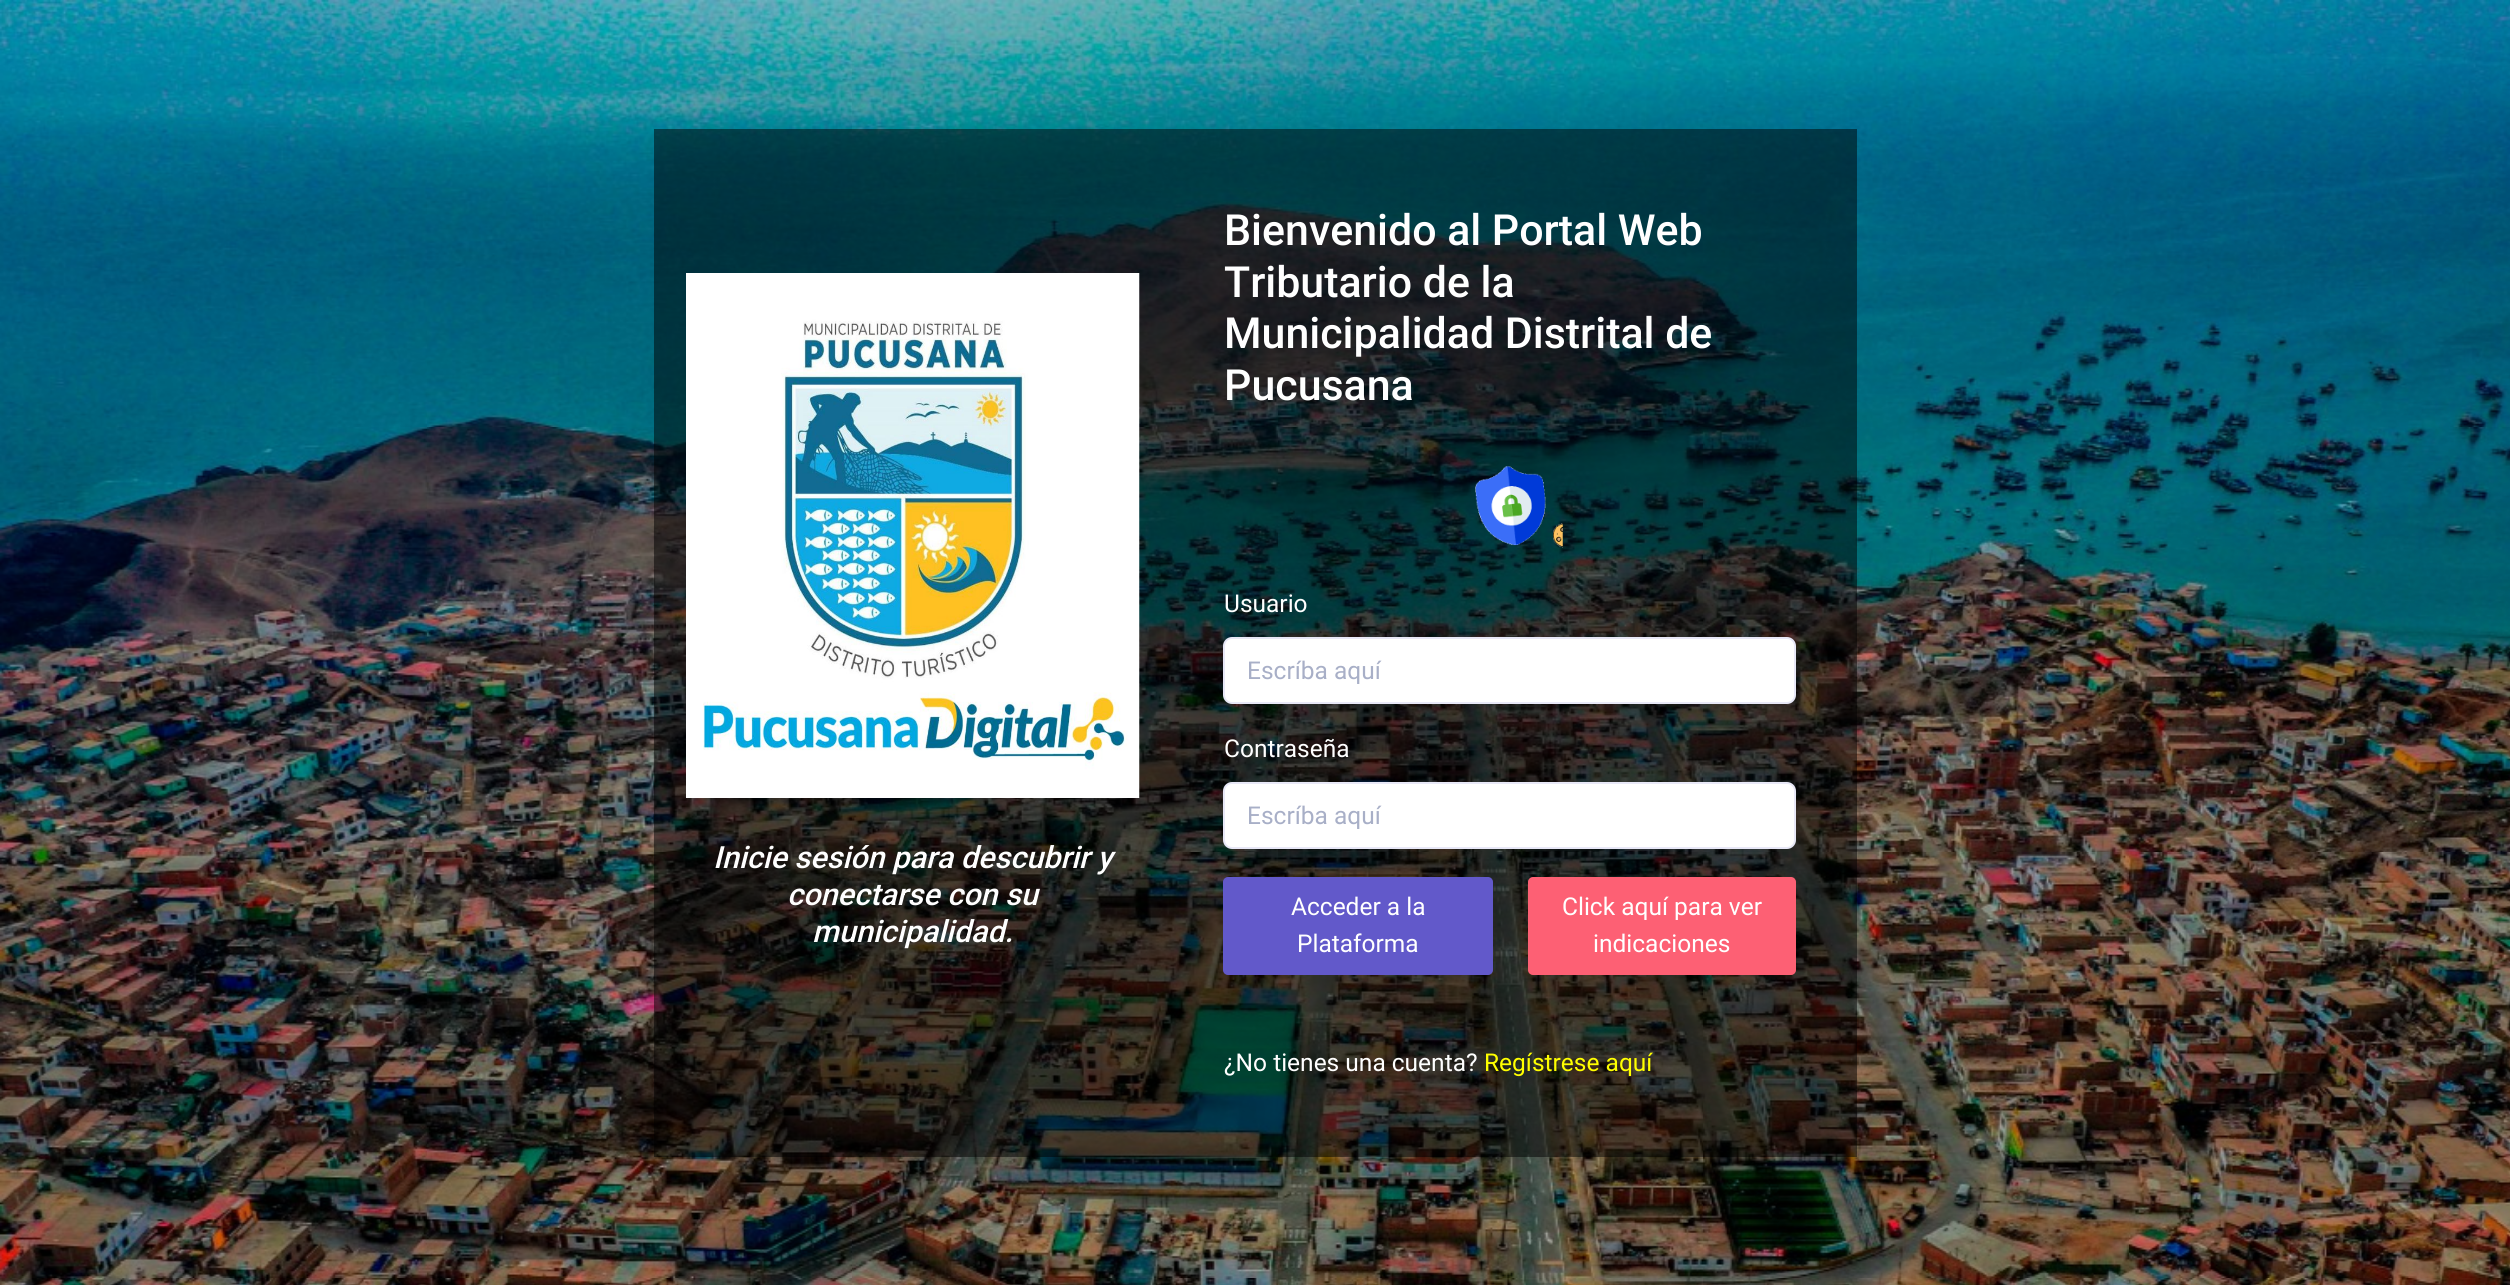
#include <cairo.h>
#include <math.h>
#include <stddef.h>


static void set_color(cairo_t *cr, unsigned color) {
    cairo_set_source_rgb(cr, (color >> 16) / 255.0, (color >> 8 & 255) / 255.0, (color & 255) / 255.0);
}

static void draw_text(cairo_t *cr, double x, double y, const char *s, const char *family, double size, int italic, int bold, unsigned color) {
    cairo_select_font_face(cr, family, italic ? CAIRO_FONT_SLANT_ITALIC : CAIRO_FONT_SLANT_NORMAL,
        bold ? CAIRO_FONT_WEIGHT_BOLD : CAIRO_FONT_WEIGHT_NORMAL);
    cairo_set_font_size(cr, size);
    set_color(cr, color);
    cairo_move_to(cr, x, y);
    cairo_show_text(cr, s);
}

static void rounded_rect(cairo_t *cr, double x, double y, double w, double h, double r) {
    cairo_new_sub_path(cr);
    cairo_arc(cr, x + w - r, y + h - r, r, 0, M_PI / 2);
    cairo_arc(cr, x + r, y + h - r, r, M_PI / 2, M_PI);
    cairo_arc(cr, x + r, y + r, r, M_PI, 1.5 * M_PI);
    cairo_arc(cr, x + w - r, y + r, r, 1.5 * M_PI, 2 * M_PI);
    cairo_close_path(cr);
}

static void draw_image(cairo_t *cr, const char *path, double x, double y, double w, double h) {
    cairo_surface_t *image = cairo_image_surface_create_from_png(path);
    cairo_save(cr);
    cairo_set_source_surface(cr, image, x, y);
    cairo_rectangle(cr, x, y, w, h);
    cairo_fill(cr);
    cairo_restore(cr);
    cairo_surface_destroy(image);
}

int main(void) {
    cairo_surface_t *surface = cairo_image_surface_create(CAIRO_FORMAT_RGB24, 2510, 1285);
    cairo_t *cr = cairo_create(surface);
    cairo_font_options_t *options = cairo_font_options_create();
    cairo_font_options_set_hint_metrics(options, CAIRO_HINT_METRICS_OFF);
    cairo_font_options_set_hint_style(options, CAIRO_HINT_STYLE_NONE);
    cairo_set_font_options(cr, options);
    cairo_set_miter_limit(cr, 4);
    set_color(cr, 0xFFFFFF);
    cairo_paint(cr);
    draw_image(cr, "assets/img1.png", 0, 0, 2510, 1285);
    cairo_set_source_rgba(cr, 0, 0, 0, 0.5);
    cairo_rectangle(cr, 654, 129, 1203, 1028);
    cairo_fill(cr);
    draw_image(cr, "assets/img2.png", 686, 273, 454, 525);
    draw_text(cr, 713, 868, "Inicie sesión para descubrir y", "Roboto Medium", 30.6, 1, 0, 0xFFFFFF);
    draw_text(cr, 787, 905, "conectarse con su", "Roboto Medium", 30.6, 1, 0, 0xFFFFFF);
    draw_text(cr, 812, 942, "municipalidad.", "Roboto Medium", 30.6, 1, 0, 0xFFFFFF);
    draw_text(cr, 1224, 245, "Bienvenido al Portal Web", "Roboto Medium", 42.9, 0, 0, 0xFFFFFF);
    draw_text(cr, 1224, 297, "Tributario de la", "Roboto Medium", 42.9, 0, 0, 0xFFFFFF);
    draw_text(cr, 1224, 348, "Municipalidad Distrital de", "Roboto Medium", 42.9, 0, 0, 0xFFFFFF);
    draw_text(cr, 1224, 400, "Pucusana", "Roboto Medium", 42.9, 0, 0, 0xFFFFFF);
    draw_image(cr, "assets/img3.png", 1475, 466, 88, 82);
    draw_text(cr, 1224, 612, "Usuario", "Roboto", 24.5, 0, 0, 0xFFFFFF);
    rounded_rect(cr, 1224, 638, 571, 65, 8);
    cairo_fill_preserve(cr);
    set_color(cr, 0xE8E8F7);
    cairo_stroke(cr);
    draw_text(cr, 1247, 679, "Escríba aquí", "Roboto", 24.5, 0, 0, 0xA8AFC7);
    draw_text(cr, 1224, 757, "Contraseña", "Roboto", 24.5, 0, 0, 0xFFFFFF);
    rounded_rect(cr, 1224, 783, 571, 65, 8);
    cairo_fill_preserve(cr);
    set_color(cr, 0xE8E8F7);
    cairo_stroke(cr);
    draw_text(cr, 1247, 824, "Escríba aquí", "Roboto", 24.5, 0, 0, 0xA8AFC7);
    set_color(cr, 0x6259CA);
    rounded_rect(cr, 1224, 878, 268, 96, 4);
    cairo_fill_preserve(cr);
    cairo_stroke(cr);
    draw_text(cr, 1291, 915, "Acceder a la", "Roboto", 24.5, 0, 0, 0xFFFFFF);
    draw_text(cr, 1297, 952, "Plataforma", "Roboto", 24.5, 0, 0, 0xFFFFFF);
    set_color(cr, 0xFD6074);
    rounded_rect(cr, 1529, 878, 266, 96, 4);
    cairo_fill_preserve(cr);
    cairo_stroke(cr);
    draw_text(cr, 1562, 915, "Click aquí para ver", "Roboto", 24.5, 0, 0, 0xFFFFFF);
    draw_text(cr, 1593, 952, "indicaciones", "Roboto", 24.5, 0, 0, 0xFFFFFF);
    draw_text(cr, 1224, 1071, "¿No tienes una cuenta?", "Roboto", 24.5, 0, 0, 0xFFFFFF);
    draw_text(cr, 1484, 1071, "Regístrese aquí", "Roboto", 24.5, 0, 0, 0xFFFF00);
    cairo_surface_write_to_png(surface, "output.png");
    cairo_font_options_destroy(options);
    cairo_destroy(cr);
    cairo_surface_destroy(surface);
    return 0;
}
